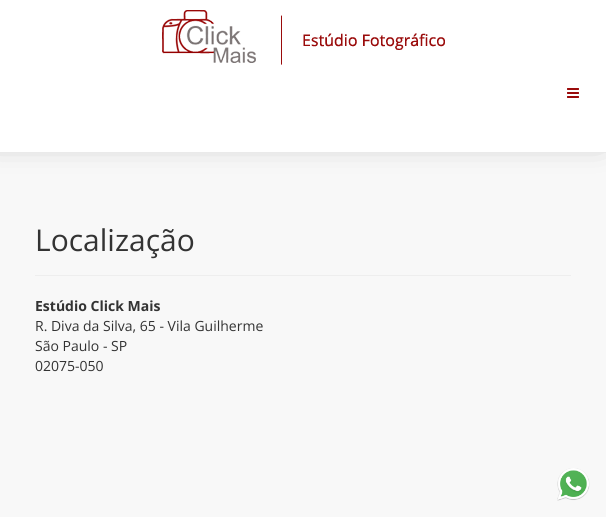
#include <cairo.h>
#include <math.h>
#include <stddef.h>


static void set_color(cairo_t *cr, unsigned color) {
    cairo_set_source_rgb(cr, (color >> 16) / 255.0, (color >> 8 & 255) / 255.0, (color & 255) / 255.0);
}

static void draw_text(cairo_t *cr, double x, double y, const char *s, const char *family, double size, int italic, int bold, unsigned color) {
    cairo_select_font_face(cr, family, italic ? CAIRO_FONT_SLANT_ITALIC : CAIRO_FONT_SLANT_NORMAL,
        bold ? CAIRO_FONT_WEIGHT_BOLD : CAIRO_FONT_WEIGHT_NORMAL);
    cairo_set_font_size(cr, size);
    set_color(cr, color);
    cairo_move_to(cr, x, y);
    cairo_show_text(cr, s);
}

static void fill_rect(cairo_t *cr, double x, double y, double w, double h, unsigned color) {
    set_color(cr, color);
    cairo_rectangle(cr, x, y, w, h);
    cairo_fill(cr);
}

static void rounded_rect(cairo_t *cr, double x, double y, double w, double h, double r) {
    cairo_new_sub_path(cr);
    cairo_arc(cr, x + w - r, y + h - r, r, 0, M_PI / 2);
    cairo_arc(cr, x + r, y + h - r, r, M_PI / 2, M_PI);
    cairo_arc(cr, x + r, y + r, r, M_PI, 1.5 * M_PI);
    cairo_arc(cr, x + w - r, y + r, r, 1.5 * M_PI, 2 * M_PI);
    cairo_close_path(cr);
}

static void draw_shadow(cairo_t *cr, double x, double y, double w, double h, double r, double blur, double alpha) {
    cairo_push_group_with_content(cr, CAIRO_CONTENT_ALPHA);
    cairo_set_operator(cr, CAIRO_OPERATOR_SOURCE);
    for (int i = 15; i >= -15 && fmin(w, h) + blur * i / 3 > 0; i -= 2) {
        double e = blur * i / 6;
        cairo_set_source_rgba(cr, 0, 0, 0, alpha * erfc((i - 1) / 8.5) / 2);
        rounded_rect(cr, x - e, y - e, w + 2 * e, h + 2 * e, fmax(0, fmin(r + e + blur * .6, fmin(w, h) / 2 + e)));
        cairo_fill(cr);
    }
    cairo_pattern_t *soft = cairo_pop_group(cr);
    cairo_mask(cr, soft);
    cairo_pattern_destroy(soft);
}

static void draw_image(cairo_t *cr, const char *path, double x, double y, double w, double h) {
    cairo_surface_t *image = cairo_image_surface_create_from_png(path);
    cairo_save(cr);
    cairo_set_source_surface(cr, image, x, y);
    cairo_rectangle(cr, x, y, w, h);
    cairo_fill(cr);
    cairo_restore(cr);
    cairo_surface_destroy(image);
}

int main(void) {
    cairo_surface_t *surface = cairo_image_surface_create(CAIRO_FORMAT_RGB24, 606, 517);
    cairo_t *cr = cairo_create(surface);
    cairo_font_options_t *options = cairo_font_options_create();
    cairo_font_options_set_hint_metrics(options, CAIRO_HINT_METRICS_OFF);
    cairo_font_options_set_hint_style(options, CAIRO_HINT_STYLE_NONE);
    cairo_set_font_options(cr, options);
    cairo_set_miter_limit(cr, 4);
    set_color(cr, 0xF8F8F8);
    cairo_paint(cr);
    set_color(cr, 0x000000);
    draw_shadow(cr, -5, -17, 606, 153, 0, 17.5, 0.32);
    fill_rect(cr, 0, 0, 606, 152, 0xFFFFFF);
    fill_rect(cr, 0, 152, 606, 1, 0xEAEAEA);
    draw_image(cr, "assets/img1.png", 162, 10, 283, 55);
    draw_image(cr, "assets/img2.png", 567, 88, 12, 10);
    fill_rect(cr, 35, 275, 536, 1, 0xEEEEEE);
    draw_text(cr, 35, 251, "Localização", "Open Sans", 30, 0, 0, 0x333333);
    draw_text(cr, 35, 311, "Estúdio Click Mais", "Open Sans", 14, 0, 1, 0x333333);
    draw_text(cr, 35, 331, "R. Diva da Silva, 65 - Vila Guilherme", "Open Sans", 14, 0, 0, 0x333333);
    draw_text(cr, 35, 351, "São Paulo - SP", "Open Sans", 14, 0, 0, 0x333333);
    draw_text(cr, 35, 371, "02075-050", "Open Sans", 14, 0, 0, 0x333333);
    draw_image(cr, "assets/img3.png", 557, 468, 33, 33);
    cairo_surface_write_to_png(surface, "output.png");
    cairo_font_options_destroy(options);
    cairo_destroy(cr);
    cairo_surface_destroy(surface);
    return 0;
}
